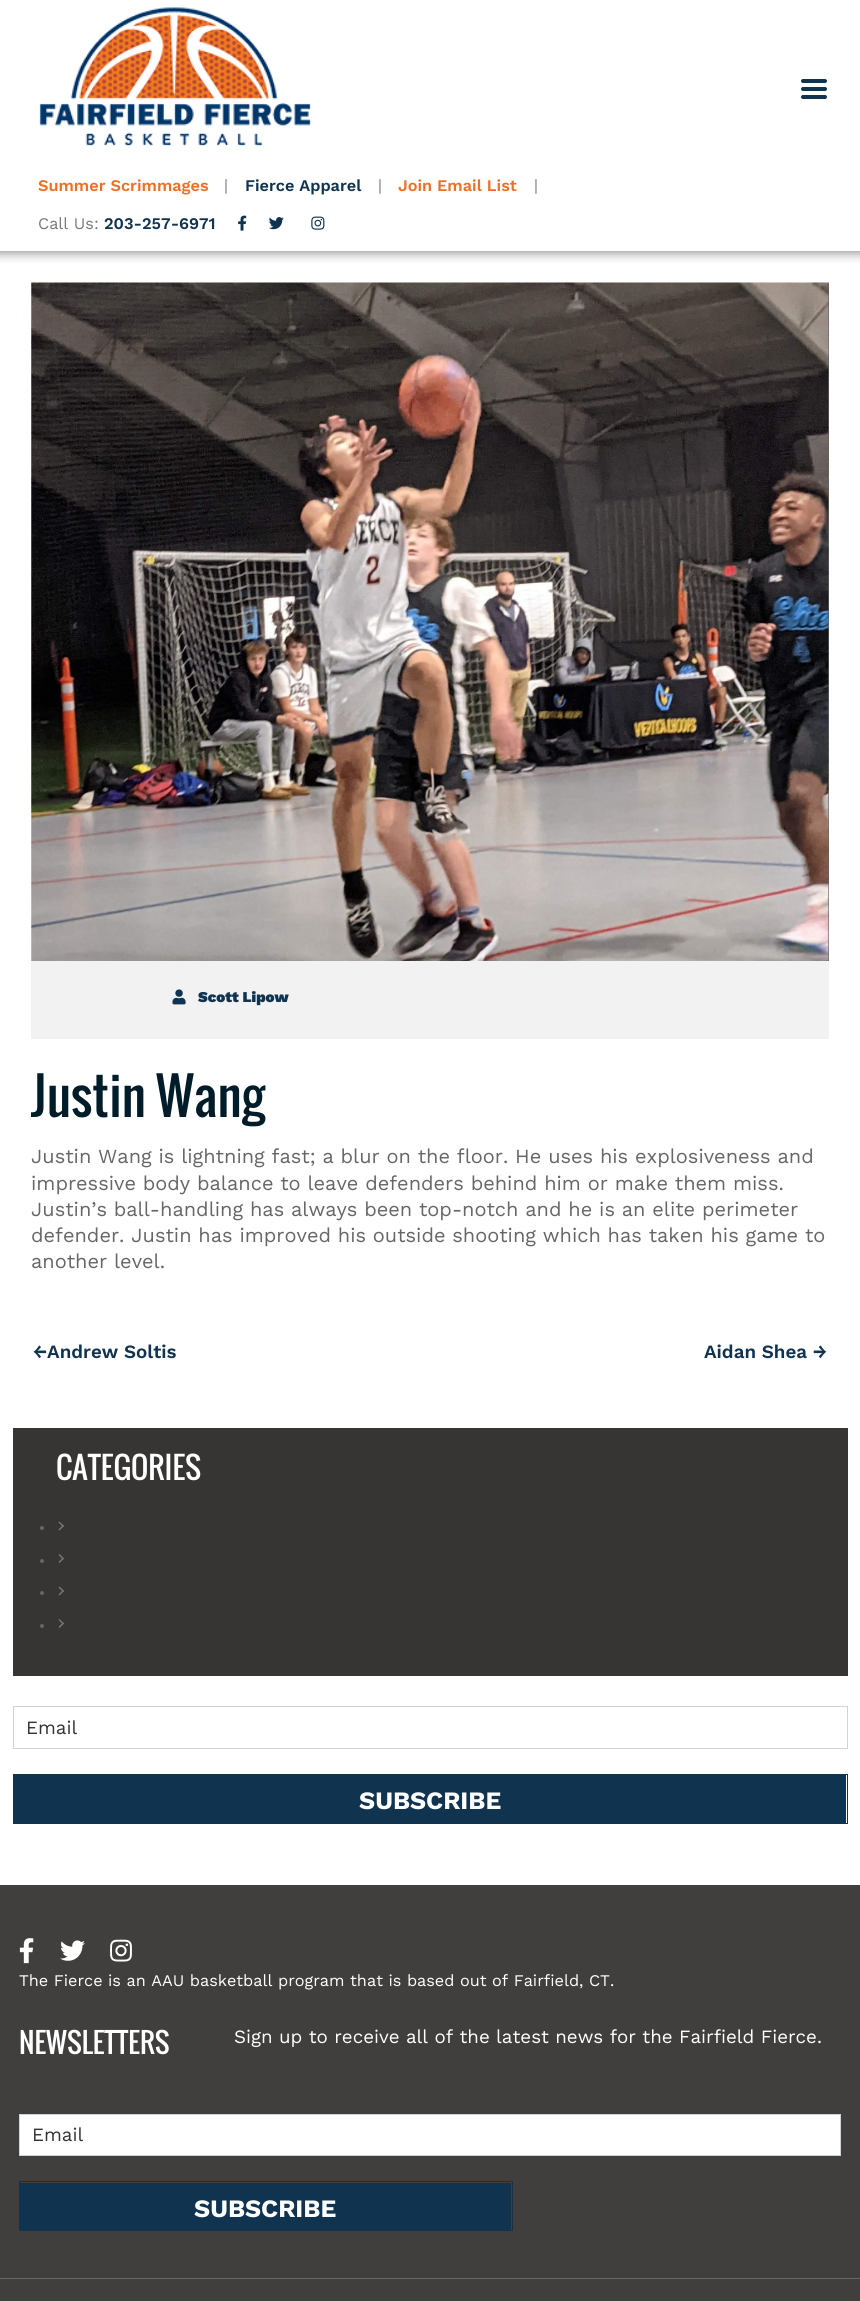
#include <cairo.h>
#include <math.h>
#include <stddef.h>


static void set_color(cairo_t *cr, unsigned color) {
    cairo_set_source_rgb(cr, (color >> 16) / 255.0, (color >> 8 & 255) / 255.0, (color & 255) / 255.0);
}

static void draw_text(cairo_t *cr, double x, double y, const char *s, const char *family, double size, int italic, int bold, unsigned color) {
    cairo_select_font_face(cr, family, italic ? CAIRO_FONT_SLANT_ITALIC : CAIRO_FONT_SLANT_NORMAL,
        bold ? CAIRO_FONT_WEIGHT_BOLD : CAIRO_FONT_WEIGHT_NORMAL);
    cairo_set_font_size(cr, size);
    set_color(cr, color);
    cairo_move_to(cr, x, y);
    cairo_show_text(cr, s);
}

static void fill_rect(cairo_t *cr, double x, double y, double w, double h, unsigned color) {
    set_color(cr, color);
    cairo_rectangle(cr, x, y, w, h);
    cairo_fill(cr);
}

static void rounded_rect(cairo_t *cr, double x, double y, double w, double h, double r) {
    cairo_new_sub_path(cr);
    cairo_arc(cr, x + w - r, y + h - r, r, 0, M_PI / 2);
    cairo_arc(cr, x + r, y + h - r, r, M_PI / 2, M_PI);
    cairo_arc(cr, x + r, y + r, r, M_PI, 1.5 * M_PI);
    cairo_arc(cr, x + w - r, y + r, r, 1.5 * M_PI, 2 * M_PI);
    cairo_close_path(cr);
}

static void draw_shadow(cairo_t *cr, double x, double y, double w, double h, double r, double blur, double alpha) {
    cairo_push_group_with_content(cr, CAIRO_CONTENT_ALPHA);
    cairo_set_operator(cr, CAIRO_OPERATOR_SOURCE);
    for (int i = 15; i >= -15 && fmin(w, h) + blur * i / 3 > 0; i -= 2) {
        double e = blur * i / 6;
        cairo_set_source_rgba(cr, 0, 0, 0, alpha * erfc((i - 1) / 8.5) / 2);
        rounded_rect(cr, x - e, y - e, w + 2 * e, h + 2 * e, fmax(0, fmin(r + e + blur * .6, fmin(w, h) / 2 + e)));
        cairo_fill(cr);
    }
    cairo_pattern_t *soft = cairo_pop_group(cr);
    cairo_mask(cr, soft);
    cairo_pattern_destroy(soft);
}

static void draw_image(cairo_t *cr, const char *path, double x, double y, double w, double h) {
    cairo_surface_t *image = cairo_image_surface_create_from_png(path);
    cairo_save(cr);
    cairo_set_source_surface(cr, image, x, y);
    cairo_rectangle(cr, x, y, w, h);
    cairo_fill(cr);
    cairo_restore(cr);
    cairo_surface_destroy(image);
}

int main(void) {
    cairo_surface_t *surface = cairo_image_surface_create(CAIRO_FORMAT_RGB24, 860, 2301);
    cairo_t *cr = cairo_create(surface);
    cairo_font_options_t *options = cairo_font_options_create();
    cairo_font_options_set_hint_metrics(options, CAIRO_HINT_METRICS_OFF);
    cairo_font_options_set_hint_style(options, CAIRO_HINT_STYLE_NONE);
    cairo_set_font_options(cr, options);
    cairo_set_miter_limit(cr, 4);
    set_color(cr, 0xFFFFFF);
    cairo_paint(cr);
    cairo_save(cr);
    cairo_rectangle(cr, 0, 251, 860, 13);
    cairo_clip(cr);
    set_color(cr, 0x9F9F9F);
    draw_shadow(cr, -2, -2, 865, 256, 0, 5, 1);
    cairo_restore(cr);
    draw_image(cr, "assets/img1.png", 39, 7, 272, 139);
    cairo_new_path(cr);
    cairo_move_to(cr, 803, 81);
    cairo_line_to(cr, 825, 81);
    cairo_move_to(cr, 803, 89);
    cairo_line_to(cr, 825, 89);
    cairo_move_to(cr, 803, 97);
    cairo_line_to(cr, 825, 97);
    set_color(cr, 0x10334F);
    cairo_set_line_width(cr, 4);
    cairo_set_line_cap(cr, CAIRO_LINE_CAP_ROUND);
    cairo_stroke(cr);
    draw_text(cr, 38, 191, "Summer Scrimmages", "Work Sans SemiBold", 16.25, 0, 0, 0xEC7026);
    draw_text(cr, 224, 191, "|", "Work Sans", 16.25, 0, 0, 0x787878);
    draw_text(cr, 245, 191, "Fierce Apparel", "Work Sans SemiBold", 16.25, 0, 0, 0x10334F);
    draw_text(cr, 378, 191, "|", "Work Sans", 16.25, 0, 0, 0x787878);
    draw_text(cr, 398, 191, "Join Email List", "Work Sans SemiBold", 16.25, 0, 0, 0xEC7026);
    draw_text(cr, 534, 191, "|", "Work Sans", 16.25, 0, 0, 0x787878);
    draw_text(cr, 38, 229, "Call Us:", "Work Sans", 16.25, 0, 0, 0x787878);
    draw_text(cr, 104, 229, "203-257-6971", "Work Sans SemiBold", 16.25, 0, 0, 0x10334F);
    draw_image(cr, "assets/img2.png", 238, 215, 9, 16);
    draw_image(cr, "assets/img3.png", 269, 217, 15, 13);
    draw_image(cr, "assets/img4.png", 311, 216, 14, 14);
    draw_image(cr, "assets/img5.png", 31, 282, 798, 679);
    fill_rect(cr, 31, 961, 798, 78, 0xF2F2F2);
    draw_image(cr, "assets/img6.png", 172, 989, 14, 16);
    draw_text(cr, 198, 1002, "Scott Lipow", "Work Sans Black", 15, 0, 0, 0x10334F);
    draw_text(cr, 31, 1117, "Justin Wang", "Oswald", 50, 0, 0, 0x001C28);
    draw_text(cr, 31, 1163, "Justin Wang is lightning fast; a blur on the floor. He uses his explosiveness and", "Work Sans", 20, 0, 0, 0x666666);
    draw_text(cr, 31, 1190, "impressive body balance to leave defenders behind him or make them miss.", "Work Sans", 20, 0, 0, 0x666666);
    draw_text(cr, 31, 1216, "Justin’s ball-handling has always been top-notch and he is an elite perimeter", "Work Sans", 20, 0, 0, 0x666666);
    draw_text(cr, 31, 1242, "defender. Justin has improved his outside shooting which has taken his game to", "Work Sans", 20, 0, 0, 0x666666);
    draw_text(cr, 31, 1268, "another level.", "Work Sans", 20, 0, 0, 0x666666);
    draw_text(cr, 33, 1358, "←Andrew Soltis", "Work Sans SemiBold", 18.75, 0, 0, 0x10334F);
    draw_text(cr, 704, 1358, "Aidan Shea →", "Work Sans SemiBold", 18.75, 0, 0, 0x10334F);
    fill_rect(cr, 13, 1428, 835, 248, 0x363533);
    draw_text(cr, 56, 1480, "CATEGORIES", "Oswald", 30, 0, 0, 0xFFFFFF);
    set_color(cr, 0x666666);
    cairo_new_path(cr);
    cairo_arc(cr, 42, 1528, 2, 0, 2 * M_PI);
    cairo_fill(cr);
    set_color(cr, 0x787878);
    cairo_new_path(cr);
    cairo_move_to(cr, 58.5, 1522.5);
    cairo_line_to(cr, 59.5, 1521.5);
    cairo_line_to(cr, 64, 1526);
    cairo_line_to(cr, 63, 1527);
    cairo_close_path(cr);
    cairo_fill(cr);
    cairo_new_path(cr);
    cairo_move_to(cr, 58.5, 1529.5);
    cairo_line_to(cr, 63, 1525);
    cairo_line_to(cr, 64, 1526);
    cairo_line_to(cr, 59.5, 1530.5);
    cairo_close_path(cr);
    cairo_move_to(cr, 58.5, 1555);
    cairo_line_to(cr, 59.5, 1554);
    cairo_line_to(cr, 64, 1558.5);
    cairo_line_to(cr, 63, 1559.5);
    cairo_close_path(cr);
    cairo_fill(cr);
    set_color(cr, 0x666666);
    cairo_arc(cr, 42, 1561, 2, 0, 2 * M_PI);
    cairo_fill(cr);
    set_color(cr, 0x787878);
    cairo_new_path(cr);
    cairo_move_to(cr, 58.5, 1562);
    cairo_line_to(cr, 63, 1557.5);
    cairo_line_to(cr, 64, 1558.5);
    cairo_line_to(cr, 59.5, 1563);
    cairo_close_path(cr);
    cairo_move_to(cr, 58.5, 1587.5);
    cairo_line_to(cr, 59.5, 1586.5);
    cairo_line_to(cr, 64, 1591);
    cairo_line_to(cr, 63, 1592);
    cairo_close_path(cr);
    cairo_fill(cr);
    set_color(cr, 0x666666);
    cairo_arc(cr, 42, 1593, 2, 0, 2 * M_PI);
    cairo_fill(cr);
    set_color(cr, 0x787878);
    cairo_new_path(cr);
    cairo_move_to(cr, 58.5, 1594.5);
    cairo_line_to(cr, 63, 1590);
    cairo_line_to(cr, 64, 1591);
    cairo_line_to(cr, 59.5, 1595.5);
    cairo_close_path(cr);
    cairo_move_to(cr, 58.5, 1620);
    cairo_line_to(cr, 59.5, 1619);
    cairo_line_to(cr, 64, 1623.5);
    cairo_line_to(cr, 63, 1624.5);
    cairo_close_path(cr);
    cairo_fill(cr);
    set_color(cr, 0x666666);
    cairo_arc(cr, 42, 1626, 2, 0, 2 * M_PI);
    cairo_fill(cr);
    set_color(cr, 0x787878);
    cairo_new_path(cr);
    cairo_move_to(cr, 58.5, 1627);
    cairo_line_to(cr, 63, 1622.5);
    cairo_line_to(cr, 64, 1623.5);
    cairo_line_to(cr, 59.5, 1628);
    cairo_close_path(cr);
    cairo_fill(cr);
    cairo_rectangle(cr, 13.5, 1706.5, 834, 42);
    set_color(cr, 0xCED4DA);
    cairo_set_line_width(cr, 1);
    cairo_set_line_cap(cr, CAIRO_LINE_CAP_BUTT);
    cairo_stroke(cr);
    draw_text(cr, 26, 1734, "Email", "Work Sans", 18.75, 0, 0, 0x333333);
    fill_rect(cr, 14, 1775, 832, 48, 0x10334F);
    cairo_rectangle(cr, 13.5, 1774.5, 834, 49);
    cairo_stroke(cr);
    draw_text(cr, 359, 1809, "SUBSCRIBE", "Work Sans", 25, 0, 1, 0xFFFFFF);
    fill_rect(cr, 0, 1885, 860, 416, 0x403F3D);
    draw_image(cr, "assets/img7.png", 19, 1938, 15, 26);
    draw_image(cr, "assets/img8.png", 60, 1940, 25, 21);
    draw_image(cr, "assets/img9.png", 110, 1939, 22, 23);
    draw_text(cr, 19, 1986, "The Fierce is an AAU basketball program that is based out of Fairfield, CT.", "Work Sans", 16.25, 0, 0, 0xFFFFFF);
    draw_text(cr, 19, 2054, "NEWSLETTERS", "Oswald", 27.5, 0, 0, 0xFFFFFF);
    draw_text(cr, 234, 2043, "Sign up to receive all of the latest news for the Fairfield Fierce.", "Work Sans", 18.75, 0, 0, 0xFFFFFF);
    cairo_rectangle(cr, 19.5, 2114.5, 821, 41);
    cairo_fill_preserve(cr);
    set_color(cr, 0xCED4DA);
    cairo_stroke(cr);
    draw_text(cr, 32, 2141, "Email", "Work Sans", 18.75, 0, 0, 0x333333);
    fill_rect(cr, 20, 2183, 491, 47, 0x10334F);
    cairo_rectangle(cr, 19.5, 2181.5, 493, 49);
    cairo_stroke(cr);
    draw_text(cr, 194, 2217, "SUBSCRIBE", "Work Sans", 25, 0, 1, 0xFFFFFF);
    fill_rect(cr, 0, 2278, 860, 1, 0x666666);
    cairo_surface_write_to_png(surface, "output.png");
    cairo_font_options_destroy(options);
    cairo_destroy(cr);
    cairo_surface_destroy(surface);
    return 0;
}
